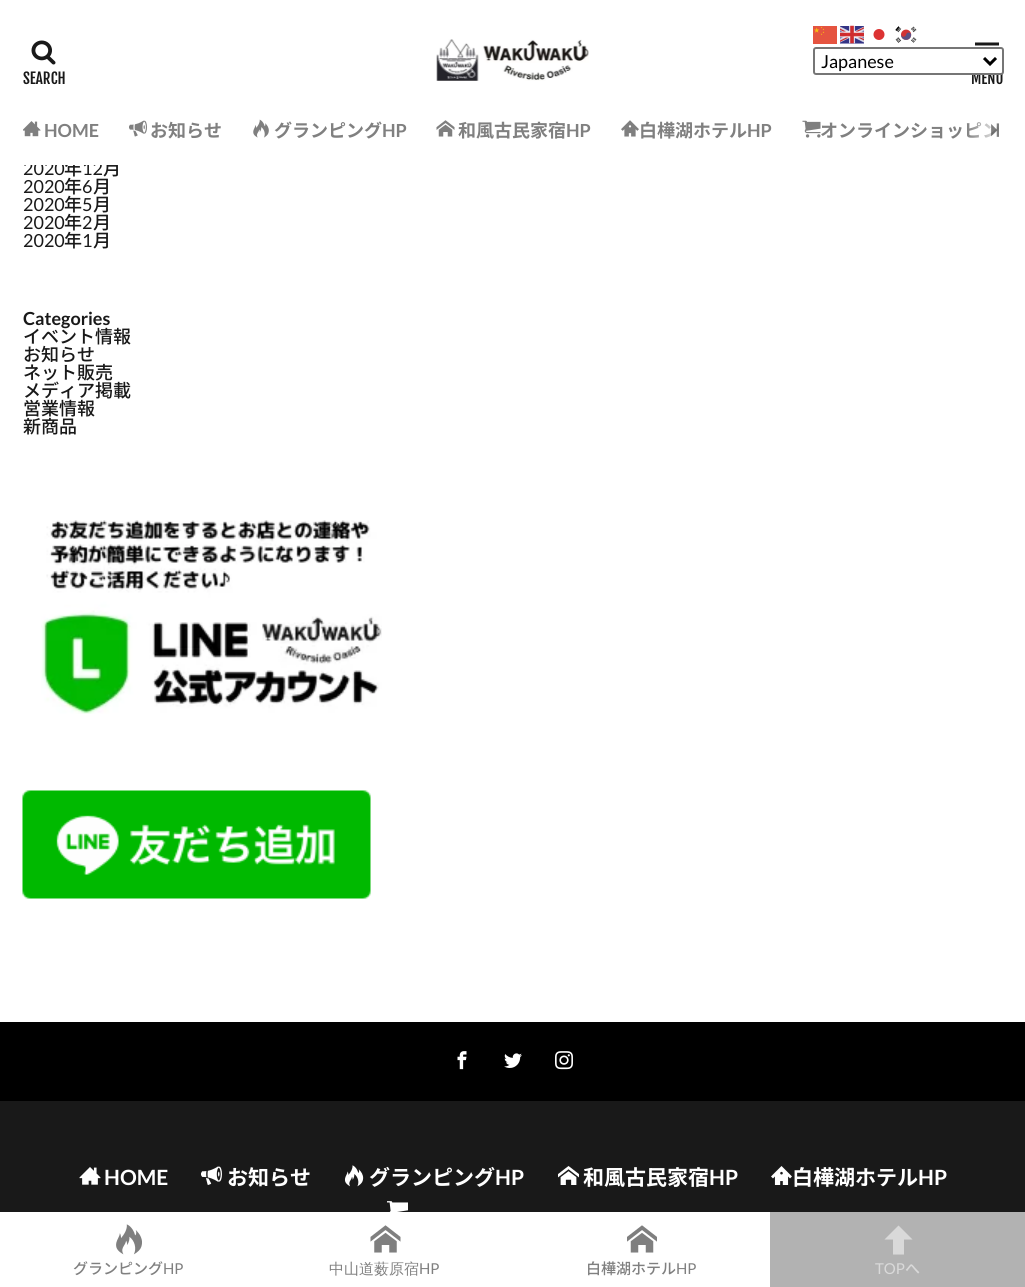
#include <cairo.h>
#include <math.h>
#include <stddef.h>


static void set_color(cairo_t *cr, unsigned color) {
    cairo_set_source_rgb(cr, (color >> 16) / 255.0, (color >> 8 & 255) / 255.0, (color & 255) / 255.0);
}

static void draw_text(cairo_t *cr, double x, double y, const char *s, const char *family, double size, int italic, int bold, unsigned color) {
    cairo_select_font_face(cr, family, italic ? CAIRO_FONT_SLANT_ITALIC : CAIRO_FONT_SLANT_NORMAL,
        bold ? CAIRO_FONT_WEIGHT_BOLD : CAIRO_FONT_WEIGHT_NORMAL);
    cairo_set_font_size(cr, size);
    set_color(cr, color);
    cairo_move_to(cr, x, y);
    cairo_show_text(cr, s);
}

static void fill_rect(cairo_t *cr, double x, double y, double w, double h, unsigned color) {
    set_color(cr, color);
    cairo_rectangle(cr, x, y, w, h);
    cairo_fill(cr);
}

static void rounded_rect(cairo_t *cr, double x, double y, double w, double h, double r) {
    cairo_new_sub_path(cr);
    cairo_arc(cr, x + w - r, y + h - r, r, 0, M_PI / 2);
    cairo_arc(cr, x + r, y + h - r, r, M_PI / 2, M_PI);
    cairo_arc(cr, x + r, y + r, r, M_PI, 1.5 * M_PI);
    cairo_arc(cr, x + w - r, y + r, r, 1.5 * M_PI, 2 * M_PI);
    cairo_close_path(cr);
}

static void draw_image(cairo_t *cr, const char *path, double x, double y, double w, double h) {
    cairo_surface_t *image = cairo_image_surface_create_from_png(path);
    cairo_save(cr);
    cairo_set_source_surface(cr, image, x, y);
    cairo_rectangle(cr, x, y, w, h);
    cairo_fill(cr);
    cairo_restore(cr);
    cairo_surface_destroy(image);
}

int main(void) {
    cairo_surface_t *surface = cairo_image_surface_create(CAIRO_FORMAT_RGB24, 1025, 1287);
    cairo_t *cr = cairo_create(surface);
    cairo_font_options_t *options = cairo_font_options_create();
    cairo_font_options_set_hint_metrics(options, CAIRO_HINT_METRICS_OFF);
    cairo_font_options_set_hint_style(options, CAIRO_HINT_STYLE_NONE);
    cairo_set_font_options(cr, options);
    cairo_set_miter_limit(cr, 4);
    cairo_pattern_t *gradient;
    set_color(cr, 0xFFFFFF);
    cairo_paint(cr);
    draw_image(cr, "assets/img1.png", 813, 26, 24, 18);
    draw_image(cr, "assets/img2.png", 840, 25, 24, 19);
    set_color(cr, 0xDC3333);
    cairo_arc(cr, 879, 34.5, 5.5, 0, 2 * M_PI);
    cairo_fill(cr);
    draw_image(cr, "assets/img3.png", 895, 26, 22, 17);
    draw_text(cr, 971, 84, "MENU", "Fjalla One", 15, 0, 0, 0x191919);
    set_color(cr, 0xFFFFFF);
    rounded_rect(cr, 814, 48, 189, 26, 2);
    cairo_fill_preserve(cr);
    set_color(cr, 0x767676);
    cairo_stroke(cr);
    cairo_new_path(cr);
    cairo_move_to(cr, 984, 58);
    cairo_line_to(cr, 990, 64);
    cairo_line_to(cr, 996, 58);
    set_color(cr, 0x000000);
    cairo_set_line_width(cr, 3);
    cairo_stroke(cr);
    draw_text(cr, 821, 68, "Japanese", "Lato", 18, 0, 0, 0x000000);
    draw_text(cr, 23, 175, "2020", "Lato", 18, 0, 0, 0x191919);
    draw_text(cr, 64, 175, "年", "Noto Sans JP Medium", 18, 0, 0, 0x191919);
    draw_text(cr, 82, 175, "12", "Lato", 18, 0, 0, 0x191919);
    draw_text(cr, 103, 175, "月", "Noto Sans JP Medium", 18, 0, 0, 0x191919);
    fill_rect(cr, 23, 159, 96, 6, 0xFFFFFF);
    draw_image(cr, "assets/img4.png", 31, 40, 25, 25);
    draw_text(cr, 23, 84, "SEARCH", "Fjalla One", 15, 0, 0, 0x191919);
    draw_image(cr, "assets/img5.png", 436, 39, 153, 42);
    draw_image(cr, "assets/img6.png", 975, 42, 24, 4);
    draw_image(cr, "assets/img7.png", 23, 121, 18, 16);
    draw_text(cr, 44, 137, "HOME", "Lato", 18, 0, 1, 0x808080);
    draw_image(cr, "assets/img8.png", 129, 120, 18, 17);
    draw_text(cr, 150, 137, "お知らせ", "Noto Sans JP", 18, 0, 1, 0x808080);
    draw_image(cr, "assets/img9.png", 253, 119, 16, 19);
    draw_text(cr, 274, 137, "グランピング", "Noto Sans JP", 18, 0, 1, 0x808080);
    draw_text(cr, 382, 137, "HP", "Lato", 18, 0, 1, 0x808080);
    draw_image(cr, "assets/img10.png", 436, 120, 19, 17);
    draw_text(cr, 458, 137, "和風古民家宿", "Noto Sans JP", 18, 0, 1, 0x808080);
    draw_text(cr, 566, 137, "HP", "Lato", 18, 0, 1, 0x808080);
    draw_image(cr, "assets/img11.png", 621, 120, 18, 17);
    draw_text(cr, 639, 137, "白樺湖ホテル", "Noto Sans JP", 18, 0, 1, 0x808080);
    draw_text(cr, 747, 137, "HP", "Lato", 18, 0, 1, 0x808080);
    draw_image(cr, "assets/img12.png", 802, 120, 19, 18);
    draw_text(cr, 820, 137, "オンラインショッピン", "Noto Sans JP", 18, 0, 1, 0x808080);
    gradient = cairo_pattern_create_linear(966, 113, 1004, 113);
    cairo_pattern_add_color_stop_rgba(gradient, 0, 1, 1, 1, 0);
    cairo_pattern_add_color_stop_rgba(gradient, 1, 1, 1, 1, 1);
    cairo_set_source(cr, gradient);
    cairo_pattern_destroy(gradient);
    cairo_rectangle(cr, 967, 122, 32, 16);
    cairo_fill(cr);
    draw_image(cr, "assets/img13.png", 991, 123, 8, 14);
    draw_text(cr, 23, 193, "2020", "Lato", 18, 0, 0, 0x191919);
    draw_text(cr, 64, 193, "年", "Noto Sans JP Medium", 18, 0, 0, 0x191919);
    draw_text(cr, 82, 193, "6", "Lato", 18, 0, 0, 0x191919);
    draw_text(cr, 93, 193, "月", "Noto Sans JP Medium", 18, 0, 0, 0x191919);
    draw_text(cr, 23, 211, "2020", "Lato", 18, 0, 0, 0x191919);
    draw_text(cr, 64, 211, "年", "Noto Sans JP Medium", 18, 0, 0, 0x191919);
    draw_text(cr, 82, 211, "5", "Lato", 18, 0, 0, 0x191919);
    draw_text(cr, 93, 211, "月", "Noto Sans JP Medium", 18, 0, 0, 0x191919);
    draw_text(cr, 23, 229, "2020", "Lato", 18, 0, 0, 0x191919);
    draw_text(cr, 64, 229, "年", "Noto Sans JP Medium", 18, 0, 0, 0x191919);
    draw_text(cr, 82, 229, "2", "Lato", 18, 0, 0, 0x191919);
    draw_text(cr, 93, 229, "月", "Noto Sans JP Medium", 18, 0, 0, 0x191919);
    draw_text(cr, 23, 247, "2020", "Lato", 18, 0, 0, 0x191919);
    draw_text(cr, 64, 247, "年", "Noto Sans JP Medium", 18, 0, 0, 0x191919);
    draw_text(cr, 82, 247, "1", "Lato", 18, 0, 0, 0x191919);
    draw_text(cr, 93, 247, "月", "Noto Sans JP Medium", 18, 0, 0, 0x191919);
    draw_text(cr, 23, 325, "Categories", "Lato", 18, 0, 1, 0x191919);
    draw_text(cr, 23, 343, "イベント情報", "Noto Sans JP Medium", 18, 0, 0, 0x191919);
    draw_text(cr, 23, 361, "お知らせ", "Noto Sans JP Medium", 18, 0, 0, 0x191919);
    draw_text(cr, 23, 379, "ネット販売", "Noto Sans JP Medium", 18, 0, 0, 0x191919);
    draw_text(cr, 23, 397, "メディア掲載", "Noto Sans JP Medium", 18, 0, 0, 0x191919);
    draw_text(cr, 23, 415, "営業情報", "Noto Sans JP Medium", 18, 0, 0, 0x191919);
    draw_text(cr, 23, 433, "新商品", "Noto Sans JP Medium", 18, 0, 0, 0x191919);
    draw_image(cr, "assets/img14.png", 41, 520, 341, 194);
    draw_image(cr, "assets/img15.png", 22, 790, 349, 109);
    fill_rect(cr, 0, 1022, 1025, 79, 0x000000);
    draw_image(cr, "assets/img16.png", 457, 1051, 10, 19);
    draw_image(cr, "assets/img17.png", 504, 1053, 18, 15);
    draw_image(cr, "assets/img18.png", 555, 1051, 18, 19);
    fill_rect(cr, 0, 1101, 1025, 111, 0x191919);
    draw_image(cr, "assets/img19.png", 79, 1167, 22, 18);
    draw_text(cr, 104, 1185, "HOME", "Lato", 21, 0, 1, 0xFFFFFF);
    draw_image(cr, "assets/img20.png", 201, 1166, 21, 19);
    draw_text(cr, 227, 1185, "お知らせ", "Noto Sans JP", 21, 0, 1, 0xFFFFFF);
    draw_image(cr, "assets/img21.png", 344, 1165, 20, 22);
    draw_text(cr, 369, 1185, "グランピング", "Noto Sans JP", 21, 0, 1, 0xFFFFFF);
    draw_text(cr, 495, 1185, "HP", "Lato", 21, 0, 1, 0xFFFFFF);
    draw_image(cr, "assets/img22.png", 558, 1166, 21, 19);
    draw_text(cr, 583, 1185, "和風古民家宿", "Noto Sans JP", 21, 0, 1, 0xFFFFFF);
    draw_text(cr, 709, 1185, "HP", "Lato", 21, 0, 1, 0xFFFFFF);
    draw_image(cr, "assets/img23.png", 771, 1166, 21, 19);
    draw_text(cr, 792, 1185, "白樺湖ホテル", "Noto Sans JP", 21, 0, 1, 0xFFFFFF);
    draw_text(cr, 918, 1185, "HP", "Lato", 21, 0, 1, 0xFFFFFF);
    draw_image(cr, "assets/img24.png", 387, 1201, 21, 11);
    draw_image(cr, "assets/img25.png", 116, 1224, 26, 31);
    draw_text(cr, 73, 1274, "グランピング", "Noto Sans JP Medium", 15, 0, 0, 0x808080);
    draw_text(cr, 163, 1274, "HP", "Lato", 15, 0, 0, 0x808080);
    draw_image(cr, "assets/img26.png", 370, 1225, 31, 28);
    draw_text(cr, 329, 1274, "中山道薮原宿", "WenQuanYi Zen Hei Medium", 15, 0, 0, 0x808080);
    draw_text(cr, 419, 1274, "HP", "Lato", 15, 0, 0, 0x808080);
    draw_image(cr, "assets/img27.png", 627, 1225, 30, 28);
    draw_text(cr, 586, 1274, "白樺湖ホテル", "Noto Sans JP Medium", 15, 0, 0, 0x808080);
    draw_text(cr, 676, 1274, "HP", "Lato", 15, 0, 0, 0x808080);
    fill_rect(cr, 770, 1212, 255, 75, 0xB2B2B2);
    set_color(cr, 0xD9D9D9);
    cairo_new_path(cr);
    cairo_move_to(cr, 898.5, 1225.5);
    cairo_line_to(cr, 884.5, 1239.5);
    cairo_line_to(cr, 893, 1239.5);
    cairo_line_to(cr, 893, 1254.5);
    cairo_line_to(cr, 904, 1254.5);
    cairo_line_to(cr, 904, 1239.5);
    cairo_line_to(cr, 912.5, 1239.5);
    cairo_close_path(cr);
    cairo_fill(cr);
    draw_text(cr, 875, 1274, "TOP", "Lato", 15, 0, 0, 0xD9D9D9);
    draw_text(cr, 905, 1274, "へ", "Noto Sans JP Medium", 15, 0, 0, 0xD9D9D9);
    cairo_surface_write_to_png(surface, "output.png");
    cairo_font_options_destroy(options);
    cairo_destroy(cr);
    cairo_surface_destroy(surface);
    return 0;
}
